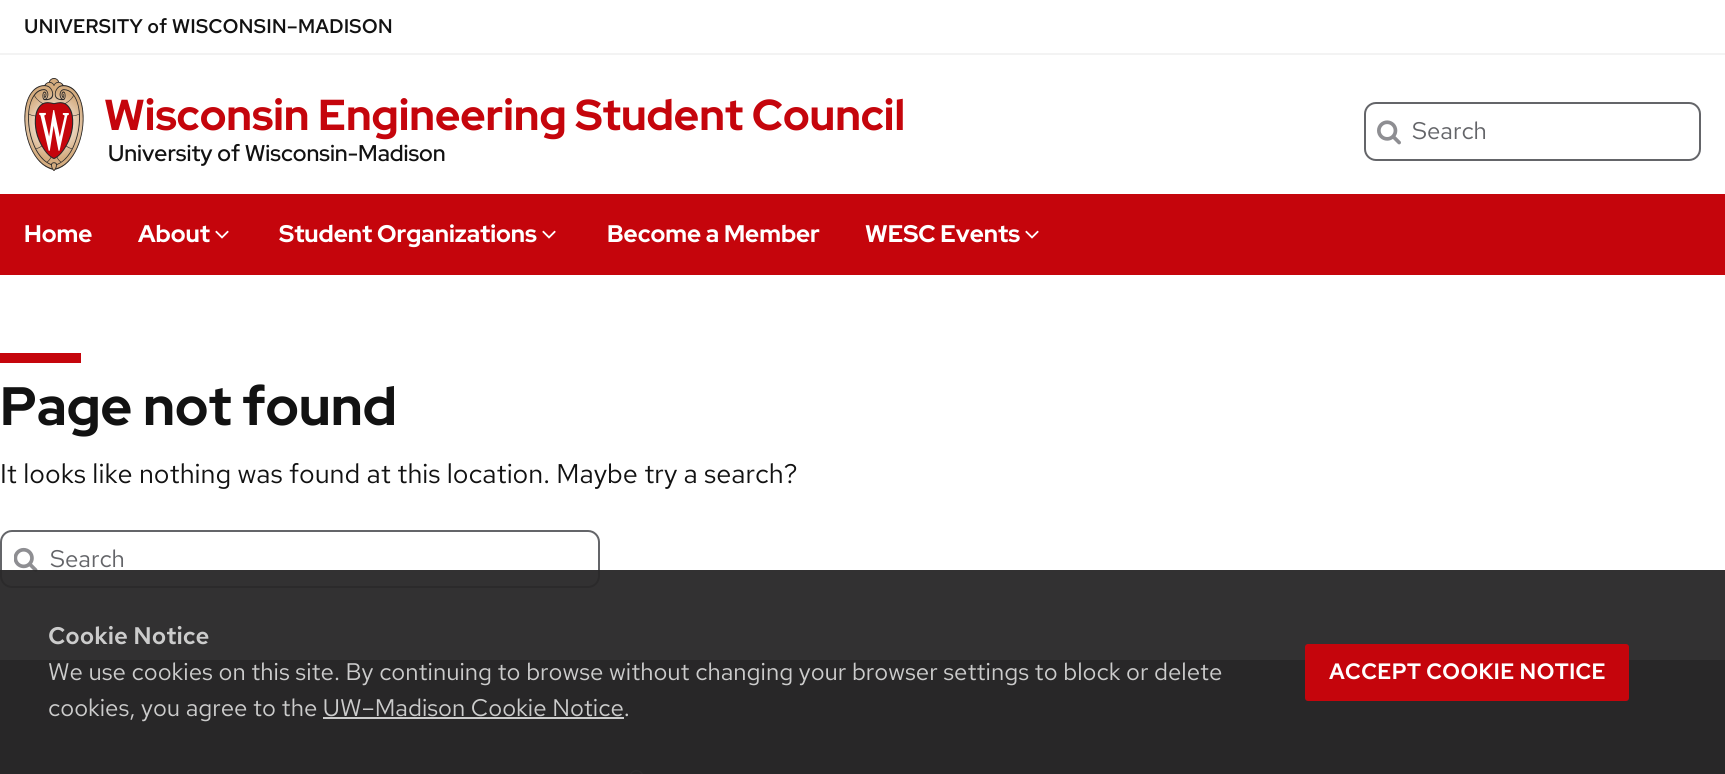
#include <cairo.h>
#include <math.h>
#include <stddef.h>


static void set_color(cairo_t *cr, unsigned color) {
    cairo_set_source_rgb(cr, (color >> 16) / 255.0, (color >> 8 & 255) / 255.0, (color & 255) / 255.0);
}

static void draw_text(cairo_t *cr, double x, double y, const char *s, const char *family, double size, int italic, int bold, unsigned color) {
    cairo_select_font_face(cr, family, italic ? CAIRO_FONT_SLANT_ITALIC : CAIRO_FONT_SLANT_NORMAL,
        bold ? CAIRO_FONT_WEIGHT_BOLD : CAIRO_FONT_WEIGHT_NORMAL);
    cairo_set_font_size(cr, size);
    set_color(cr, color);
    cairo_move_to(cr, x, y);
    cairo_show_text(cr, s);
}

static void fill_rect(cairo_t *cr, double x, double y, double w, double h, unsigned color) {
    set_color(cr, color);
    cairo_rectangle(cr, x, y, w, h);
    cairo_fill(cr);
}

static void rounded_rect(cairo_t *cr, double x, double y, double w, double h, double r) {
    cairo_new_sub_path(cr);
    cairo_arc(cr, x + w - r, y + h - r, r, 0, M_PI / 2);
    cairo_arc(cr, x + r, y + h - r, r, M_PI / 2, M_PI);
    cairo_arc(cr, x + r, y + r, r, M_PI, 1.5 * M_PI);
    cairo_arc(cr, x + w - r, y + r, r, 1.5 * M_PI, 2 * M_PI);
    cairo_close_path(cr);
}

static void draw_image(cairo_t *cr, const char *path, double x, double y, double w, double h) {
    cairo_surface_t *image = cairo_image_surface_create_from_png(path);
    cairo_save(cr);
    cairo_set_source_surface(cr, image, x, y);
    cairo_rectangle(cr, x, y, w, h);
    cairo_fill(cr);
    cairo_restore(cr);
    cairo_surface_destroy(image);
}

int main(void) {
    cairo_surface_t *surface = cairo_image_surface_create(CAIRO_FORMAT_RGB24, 1725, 774);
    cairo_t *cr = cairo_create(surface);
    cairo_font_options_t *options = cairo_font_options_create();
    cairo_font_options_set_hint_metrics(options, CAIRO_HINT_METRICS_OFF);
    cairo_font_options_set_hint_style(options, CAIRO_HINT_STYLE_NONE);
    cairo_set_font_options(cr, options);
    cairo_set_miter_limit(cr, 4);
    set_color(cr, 0xFFFFFF);
    cairo_paint(cr);
    fill_rect(cr, 0, 53, 1725, 2, 0xF3F3F3);
    draw_text(cr, 24, 33, "UNIVERSITY of WISCONSIN–MADISON", "Red Hat Text Medium", 19.75, 0, 0, 0x121212);
    draw_image(cr, "assets/img1.png", 24, 78, 60, 93);
    draw_text(cr, 104, 130, "Wisconsin Engineering Student Council", "Red Hat Display", 43.25, 0, 1, 0xC5050C);
    draw_text(cr, 108, 161, "University of Wisconsin-Madison", "Red Hat Display Medium", 22.75, 0, 0, 0x121212);
    draw_image(cr, "assets/img2.png", 1377, 120, 24, 25);
    rounded_rect(cr, 1365, 103, 335, 57, 11);
    set_color(cr, 0x646569);
    cairo_stroke(cr);
    draw_text(cr, 1412, 139, "Search", "Red Hat Text", 24, 0, 0, 0x646569);
    fill_rect(cr, 0, 194, 1725, 81, 0xC5050C);
    draw_text(cr, 24, 242, "Home", "Red Hat Display", 24, 0, 1, 0xFFFFFF);
    draw_text(cr, 138, 242, "About", "Red Hat Display", 24, 0, 1, 0xFFFFFF);
    draw_image(cr, "assets/img3.png", 215, 230, 14, 9);
    draw_text(cr, 279, 242, "Student Organizations", "Red Hat Display", 24, 0, 1, 0xFFFFFF);
    draw_image(cr, "assets/img3.png", 542, 230, 14, 9);
    draw_text(cr, 607, 242, "Become a Member", "Red Hat Display", 24, 0, 1, 0xFFFFFF);
    draw_text(cr, 865, 242, "WESC Events", "Red Hat Display", 24, 0, 1, 0xFFFFFF);
    draw_image(cr, "assets/img3.png", 1025, 230, 14, 9);
    fill_rect(cr, 0, 353, 81, 10, 0xC5050C);
    draw_text(cr, 0, 425, "Page not found", "Red Hat Display", 54, 0, 1, 0x121212);
    draw_text(cr, 0, 483, "It looks like nothing was found at this location. Maybe try a search?", "Red Hat Text", 27, 0, 0, 0x121212);
    draw_image(cr, "assets/img4.png", 14, 547, 24, 25);
    rounded_rect(cr, 1, 531, 598, 56, 11);
    set_color(cr, 0x646569);
    cairo_stroke(cr);
    draw_text(cr, 50, 567, "Search", "Red Hat Text", 24, 0, 0, 0x646569);
    fill_rect(cr, 0, 660, 1725, 114, 0x282728);
    draw_image(cr, "assets/img5.png", 630, 770, 13, 4);
    cairo_set_source_rgba(cr, 0.157, 0.153, 0.157, 0.95);
    cairo_rectangle(cr, 0, 570, 1725, 204);
    cairo_fill(cr);
    draw_text(cr, 48, 644, "Cookie Notice", "Red Hat Text SemiBold", 24, 0, 0, 0xCCCCCC);
    draw_text(cr, 48, 680, "We use cookies on this site. By continuing to browse without changing your browser settings to block or delete", "Red Hat Text", 24, 0, 0, 0xCCCCCC);
    draw_text(cr, 48, 716, "cookies, you agree to the UW–Madison Cookie Notice.", "Red Hat Text", 24, 0, 0, 0xCCCCCC);
    fill_rect(cr, 323, 717, 301, 2, 0xCCCCCC);
    set_color(cr, 0xC5050C);
    rounded_rect(cr, 1305, 644, 324, 57, 3);
    cairo_fill(cr);
    draw_text(cr, 1329, 679, "ACCEPT COOKIE NOTICE", "Red Hat Text SemiBold", 22.25, 0, 0, 0xFFFFFF);
    cairo_surface_write_to_png(surface, "output.png");
    cairo_font_options_destroy(options);
    cairo_destroy(cr);
    cairo_surface_destroy(surface);
    return 0;
}
